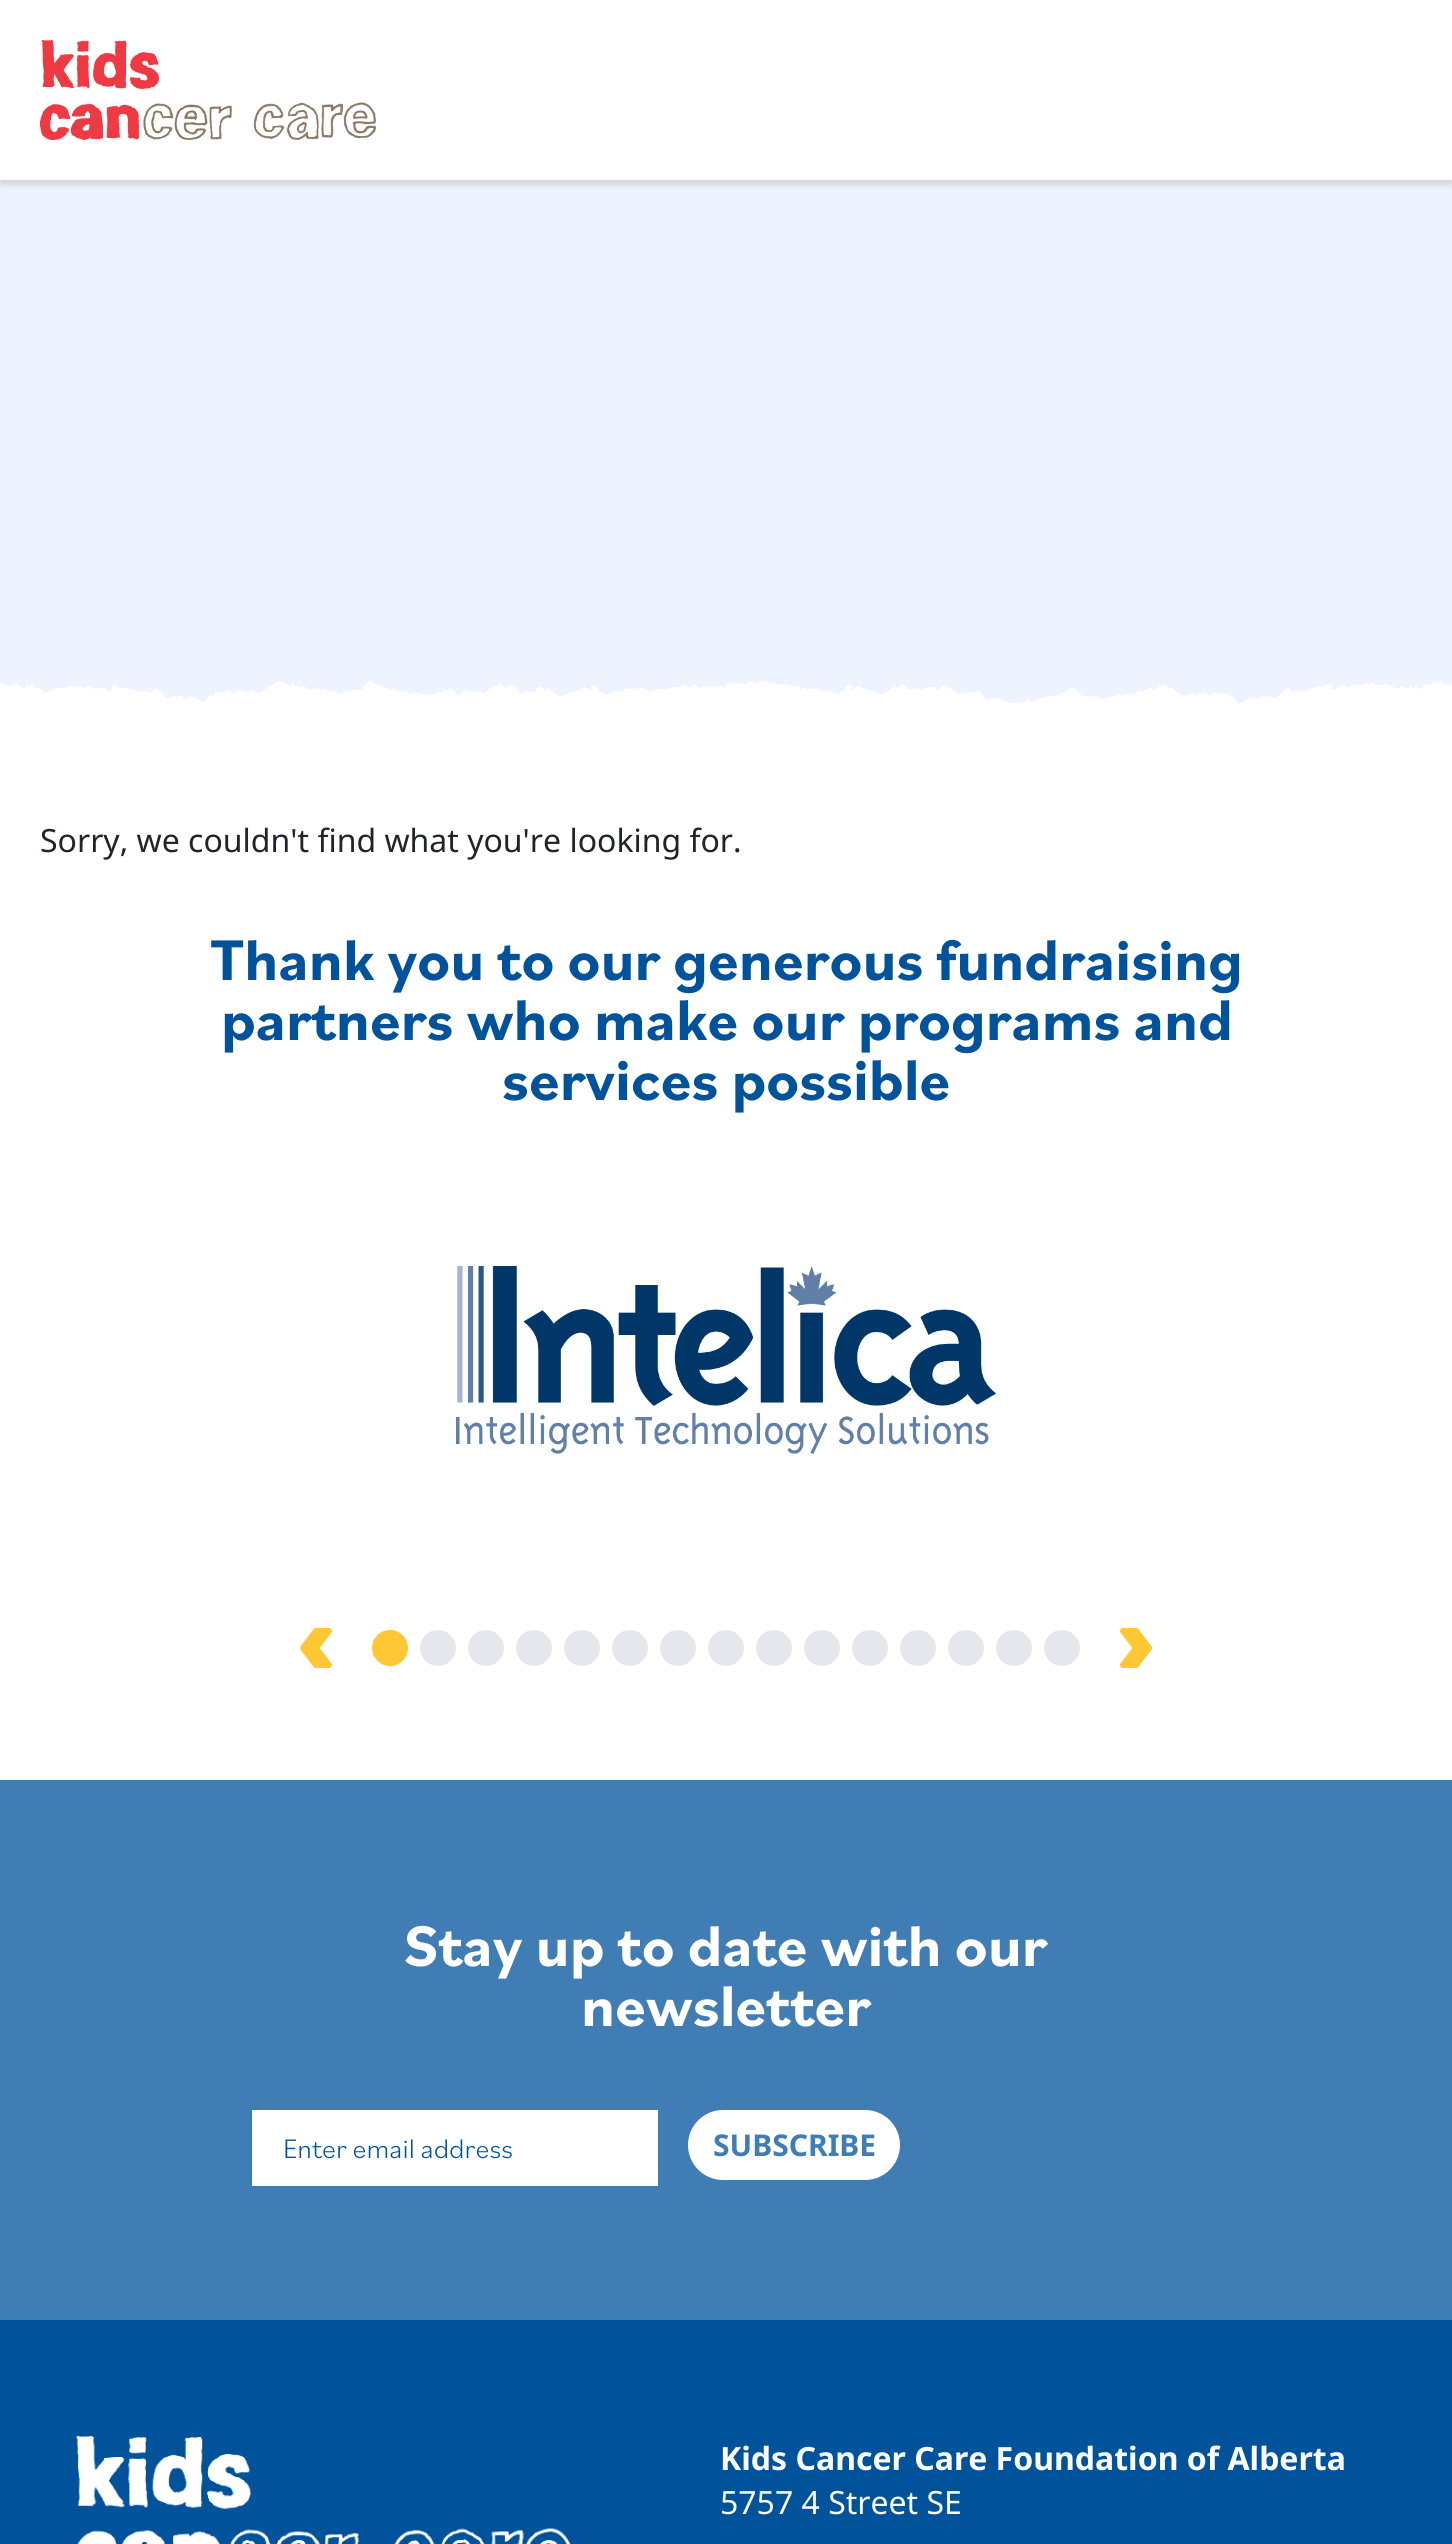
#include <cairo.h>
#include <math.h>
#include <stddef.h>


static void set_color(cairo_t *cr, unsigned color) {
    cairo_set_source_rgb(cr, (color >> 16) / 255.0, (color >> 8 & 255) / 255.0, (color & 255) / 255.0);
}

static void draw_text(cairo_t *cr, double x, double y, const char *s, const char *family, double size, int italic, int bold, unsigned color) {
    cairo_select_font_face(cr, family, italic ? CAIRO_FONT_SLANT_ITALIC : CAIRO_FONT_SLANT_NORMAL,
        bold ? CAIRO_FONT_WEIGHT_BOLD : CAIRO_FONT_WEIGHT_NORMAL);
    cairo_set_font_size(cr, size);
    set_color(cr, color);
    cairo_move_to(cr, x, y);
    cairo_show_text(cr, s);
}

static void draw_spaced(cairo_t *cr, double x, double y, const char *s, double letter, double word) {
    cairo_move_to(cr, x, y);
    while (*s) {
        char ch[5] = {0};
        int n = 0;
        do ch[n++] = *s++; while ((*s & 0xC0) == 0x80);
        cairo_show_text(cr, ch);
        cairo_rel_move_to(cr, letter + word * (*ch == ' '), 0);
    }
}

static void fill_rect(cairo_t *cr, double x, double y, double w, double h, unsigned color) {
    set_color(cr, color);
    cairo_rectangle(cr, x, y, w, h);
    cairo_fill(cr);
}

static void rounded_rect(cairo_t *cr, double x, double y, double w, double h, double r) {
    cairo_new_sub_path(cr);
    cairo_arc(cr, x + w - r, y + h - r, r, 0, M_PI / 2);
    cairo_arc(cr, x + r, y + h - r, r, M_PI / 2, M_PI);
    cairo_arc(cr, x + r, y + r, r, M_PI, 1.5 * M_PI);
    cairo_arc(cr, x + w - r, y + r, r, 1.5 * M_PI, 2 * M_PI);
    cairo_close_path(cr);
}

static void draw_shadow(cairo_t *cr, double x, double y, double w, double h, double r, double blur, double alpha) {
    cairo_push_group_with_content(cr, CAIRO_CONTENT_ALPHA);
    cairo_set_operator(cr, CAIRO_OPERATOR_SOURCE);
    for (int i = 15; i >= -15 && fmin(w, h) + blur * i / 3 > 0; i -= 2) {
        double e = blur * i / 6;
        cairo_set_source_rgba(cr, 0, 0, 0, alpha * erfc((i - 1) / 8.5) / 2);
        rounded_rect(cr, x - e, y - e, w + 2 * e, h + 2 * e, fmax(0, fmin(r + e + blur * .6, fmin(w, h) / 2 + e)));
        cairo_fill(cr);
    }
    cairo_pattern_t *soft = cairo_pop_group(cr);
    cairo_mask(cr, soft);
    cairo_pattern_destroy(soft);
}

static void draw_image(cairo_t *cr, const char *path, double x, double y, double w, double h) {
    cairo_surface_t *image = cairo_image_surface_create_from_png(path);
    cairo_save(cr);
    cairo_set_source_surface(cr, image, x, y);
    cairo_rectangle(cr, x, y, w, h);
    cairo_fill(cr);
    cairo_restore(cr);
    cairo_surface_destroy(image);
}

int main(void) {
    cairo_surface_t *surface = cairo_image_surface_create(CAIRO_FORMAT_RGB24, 1452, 2544);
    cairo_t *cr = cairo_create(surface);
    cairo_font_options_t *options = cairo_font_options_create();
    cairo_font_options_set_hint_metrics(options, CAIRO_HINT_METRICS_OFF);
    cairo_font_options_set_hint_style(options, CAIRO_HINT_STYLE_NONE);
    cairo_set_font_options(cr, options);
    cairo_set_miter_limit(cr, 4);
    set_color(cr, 0xFFFFFF);
    cairo_paint(cr);
    fill_rect(cr, 0, 180, 1452, 524, 0xEDF4FF);
    set_color(cr, 0x000000);
    draw_shadow(cr, 0, 4, 1452, 180, 0, 4, 0.15);
    fill_rect(cr, 0, 0, 1452, 180, 0xFFFFFF);
    draw_image(cr, "assets/img1.png", 40, 40, 336, 100);
    draw_image(cr, "assets/img2.png", 0, 680, 1452, 52);
    draw_text(cr, 40, 852, "Sorry, we couldn't find what you're looking for.", "Noto Sans", 32, 0, 0, 0x212529);
    draw_text(cr, 210, 980, "Thank you to our generous fundraising", "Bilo", 60, 0, 1, 0x00529B);
    draw_spaced(cr, 221, 1040, "partners who make our programs and", 0, 0.25);
    draw_text(cr, 502, 1100, "services possible", "Bilo", 60, 0, 1, 0x00529B);
    draw_image(cr, "assets/img3.png", 456, 1266, 540, 188);
    draw_image(cr, "assets/img4.png", 300, 1628, 32, 40);
    set_color(cr, 0xFFC734);
    cairo_arc(cr, 390, 1648, 18, 0, 2 * M_PI);
    cairo_fill(cr);
    set_color(cr, 0xE5E7ED);
    cairo_arc(cr, 438, 1648, 18, 0, 2 * M_PI);
    cairo_fill(cr);
    cairo_arc(cr, 486, 1648, 18, 0, 2 * M_PI);
    cairo_fill(cr);
    cairo_arc(cr, 534, 1648, 18, 0, 2 * M_PI);
    cairo_fill(cr);
    cairo_arc(cr, 582, 1648, 18, 0, 2 * M_PI);
    cairo_fill(cr);
    cairo_arc(cr, 630, 1648, 18, 0, 2 * M_PI);
    cairo_fill(cr);
    cairo_arc(cr, 678, 1648, 18, 0, 2 * M_PI);
    cairo_fill(cr);
    cairo_arc(cr, 726, 1648, 18, 0, 2 * M_PI);
    cairo_fill(cr);
    cairo_arc(cr, 774, 1648, 18, 0, 2 * M_PI);
    cairo_fill(cr);
    cairo_arc(cr, 822, 1648, 18, 0, 2 * M_PI);
    cairo_fill(cr);
    cairo_arc(cr, 870, 1648, 18, 0, 2 * M_PI);
    cairo_fill(cr);
    cairo_arc(cr, 918, 1648, 18, 0, 2 * M_PI);
    cairo_fill(cr);
    cairo_arc(cr, 966, 1648, 18, 0, 2 * M_PI);
    cairo_fill(cr);
    cairo_arc(cr, 1014, 1648, 18, 0, 2 * M_PI);
    cairo_fill(cr);
    cairo_arc(cr, 1062, 1648, 18, 0, 2 * M_PI);
    cairo_fill(cr);
    draw_image(cr, "assets/img5.png", 1120, 1628, 32, 40);
    fill_rect(cr, 0, 1780, 1452, 540, 0x407DB4);
    draw_text(cr, 404, 1966, "Stay up to date with our", "Bilo", 60, 0, 1, 0xFFFFFF);
    draw_text(cr, 581, 2026, "newsletter", "Bilo", 60, 0, 1, 0xFFFFFF);
    fill_rect(cr, 252, 2110, 406, 76, 0xFFFFFF);
    draw_text(cr, 283, 2158, "Enter email address", "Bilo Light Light", 28, 0, 0, 0x00529B);
    set_color(cr, 0xFFFFFF);
    rounded_rect(cr, 688, 2110, 212, 70, 35);
    cairo_fill(cr);
    draw_text(cr, 713, 2156, "SUBSCRIBE", "Noto Sans", 30, 0, 1, 0x407DB4);
    fill_rect(cr, 0, 2320, 1452, 224, 0x00529B);
    draw_image(cr, "assets/img6.png", 76, 2436, 495, 108);
    draw_text(cr, 720, 2470, "Kids Cancer Care Foundation of Alberta", "Noto Sans", 32, 0, 1, 0xFFFFFF);
    draw_text(cr, 720, 2514, "5757 4 Street SE", "Noto Sans", 32, 0, 0, 0xFFFFFF);
    cairo_surface_write_to_png(surface, "output.png");
    cairo_font_options_destroy(options);
    cairo_destroy(cr);
    cairo_surface_destroy(surface);
    return 0;
}
